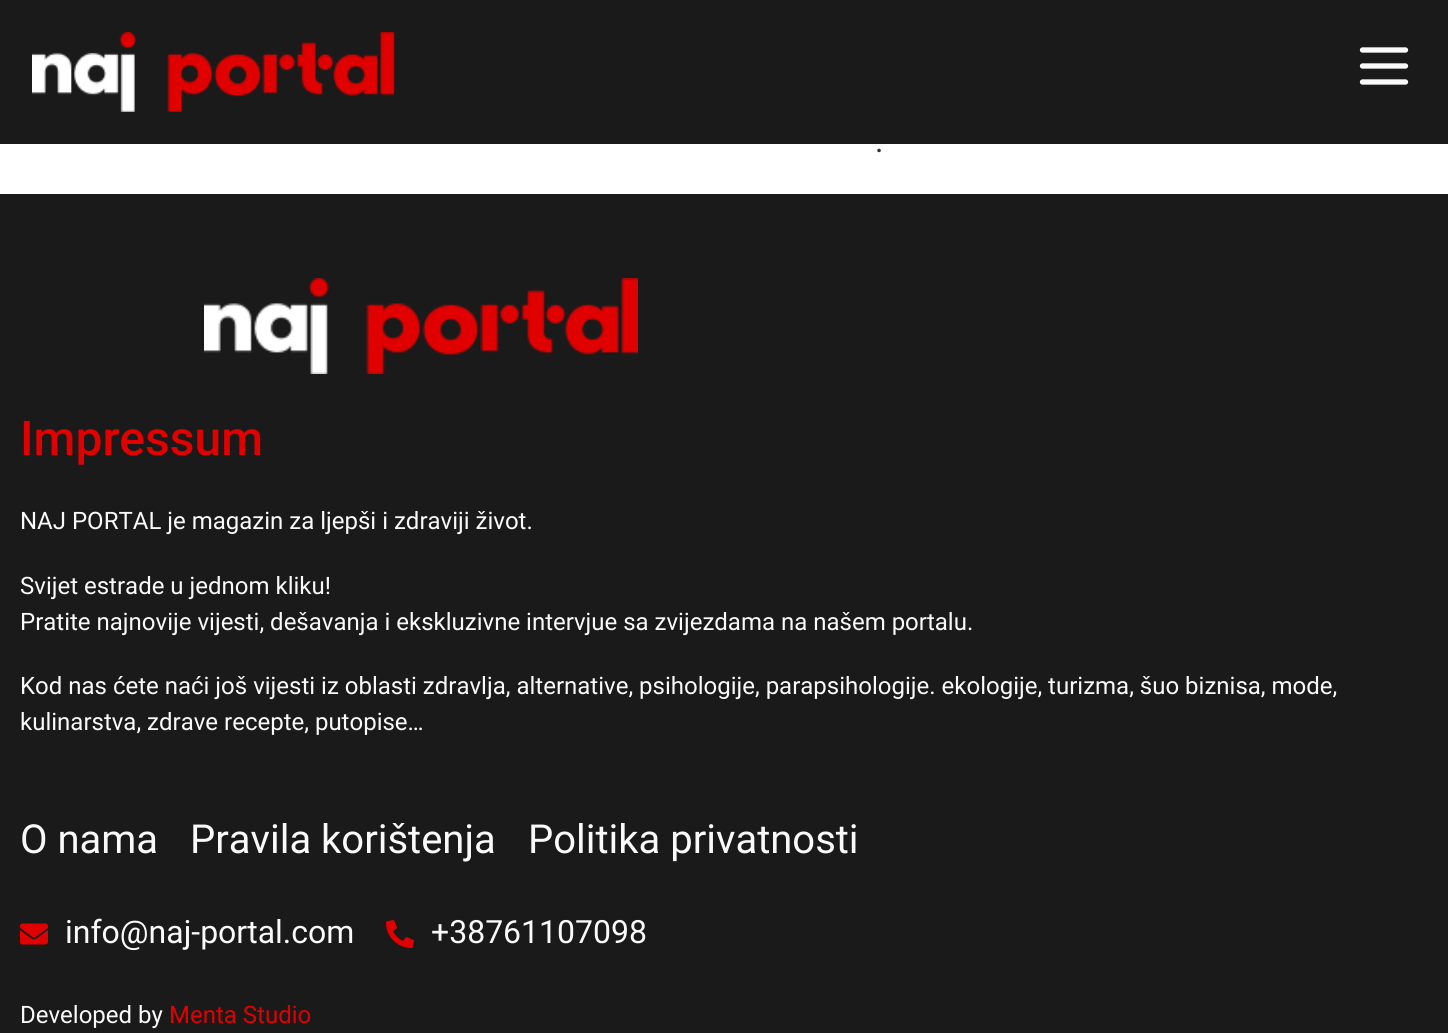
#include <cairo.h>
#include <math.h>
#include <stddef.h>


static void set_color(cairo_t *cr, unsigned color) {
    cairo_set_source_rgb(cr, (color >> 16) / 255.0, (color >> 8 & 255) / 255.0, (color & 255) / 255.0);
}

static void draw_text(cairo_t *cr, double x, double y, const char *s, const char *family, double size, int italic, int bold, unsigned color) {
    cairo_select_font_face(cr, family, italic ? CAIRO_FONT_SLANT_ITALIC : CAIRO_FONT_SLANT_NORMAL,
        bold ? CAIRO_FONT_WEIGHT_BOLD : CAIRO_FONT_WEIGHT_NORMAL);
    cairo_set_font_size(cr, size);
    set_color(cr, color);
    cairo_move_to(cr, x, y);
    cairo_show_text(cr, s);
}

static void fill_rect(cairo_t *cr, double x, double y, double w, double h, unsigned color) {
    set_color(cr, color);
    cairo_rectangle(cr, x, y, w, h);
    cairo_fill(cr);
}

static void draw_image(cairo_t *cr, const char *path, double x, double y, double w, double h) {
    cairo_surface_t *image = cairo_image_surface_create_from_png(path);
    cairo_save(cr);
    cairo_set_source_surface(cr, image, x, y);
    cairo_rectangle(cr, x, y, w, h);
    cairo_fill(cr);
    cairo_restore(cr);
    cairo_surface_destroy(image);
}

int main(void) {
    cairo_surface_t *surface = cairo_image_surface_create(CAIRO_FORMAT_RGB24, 1448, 1033);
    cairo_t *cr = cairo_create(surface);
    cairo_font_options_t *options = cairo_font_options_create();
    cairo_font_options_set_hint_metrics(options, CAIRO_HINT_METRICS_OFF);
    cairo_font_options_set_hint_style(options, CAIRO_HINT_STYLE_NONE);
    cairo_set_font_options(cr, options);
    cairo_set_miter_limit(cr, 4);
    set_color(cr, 0xFFFFFF);
    cairo_paint(cr);
    fill_rect(cr, 0, 0, 1448, 144, 0x1A1A1A);
    draw_image(cr, "assets/img1.png", 32, 32, 363, 80);
    cairo_new_path(cr);
    cairo_move_to(cr, 1362.5, 66);
    cairo_line_to(cr, 1405.5, 66);
    cairo_move_to(cr, 1362.5, 50);
    cairo_line_to(cr, 1405.5, 50);
    cairo_move_to(cr, 1362.5, 82);
    cairo_line_to(cr, 1405.5, 82);
    set_color(cr, 0xFAFAFA);
    cairo_set_line_width(cr, 5.3);
    cairo_set_line_cap(cr, CAIRO_LINE_CAP_ROUND);
    cairo_set_line_join(cr, CAIRO_LINE_JOIN_ROUND);
    cairo_stroke(cr);
    draw_text(cr, 875, 152, ".", "Roboto", 32, 0, 0, 0x333333);
    fill_rect(cr, 0, 194, 1448, 839, 0x1A1A1A);
    draw_image(cr, "assets/img2.png", 204, 278, 434, 96);
    draw_text(cr, 20, 455, "Impressum", "Roboto Medium", 48, 0, 0, 0xE00000);
    draw_text(cr, 20, 529, "NAJ PORTAL je magazin za ljepši i zdraviji život.", "Roboto", 24, 0, 0, 0xFAFAFA);
    draw_text(cr, 20, 594, "Svijet estrade u jednom kliku!", "Roboto", 24, 0, 0, 0xFAFAFA);
    draw_text(cr, 20, 630, "Pratite najnovije vijesti, dešavanja i ekskluzivne intervjue sa zvijezdama na našem portalu.", "Roboto", 24, 0, 0, 0xFAFAFA);
    draw_text(cr, 20, 694, "Kod nas ćete naći još vijesti iz oblasti zdravlja, alternative, psihologije, parapsihologije. ekologije, turizma, šuo biznisa, mode,", "Roboto", 24, 0, 0, 0xFAFAFA);
    draw_text(cr, 20, 730, "kulinarstva, zdrave recepte, putopise…", "Roboto", 24, 0, 0, 0xFAFAFA);
    draw_text(cr, 20, 853, "O nama", "Roboto", 40, 0, 0, 0xFAFAFA);
    draw_text(cr, 190, 853, "Pravila korištenja", "Roboto", 40, 0, 0, 0xFAFAFA);
    draw_text(cr, 528, 853, "Politika privatnosti", "Roboto", 40, 0, 0, 0xFAFAFA);
    draw_image(cr, "assets/img3.png", 20, 923, 28, 22);
    draw_text(cr, 65, 943, "info@naj-portal.com", "Roboto", 32, 0, 0, 0xFAFAFA);
    draw_image(cr, "assets/img4.png", 386, 920, 28, 28);
    draw_text(cr, 431, 943, "+38761107098", "Roboto", 32, 0, 0, 0xFAFAFA);
    draw_text(cr, 20, 1023, "Developed by", "Roboto", 24, 0, 0, 0xFAFAFA);
    draw_text(cr, 169, 1023, "Menta Studio", "Roboto", 24, 0, 0, 0xE00000);
    cairo_surface_write_to_png(surface, "output.png");
    cairo_font_options_destroy(options);
    cairo_destroy(cr);
    cairo_surface_destroy(surface);
    return 0;
}
